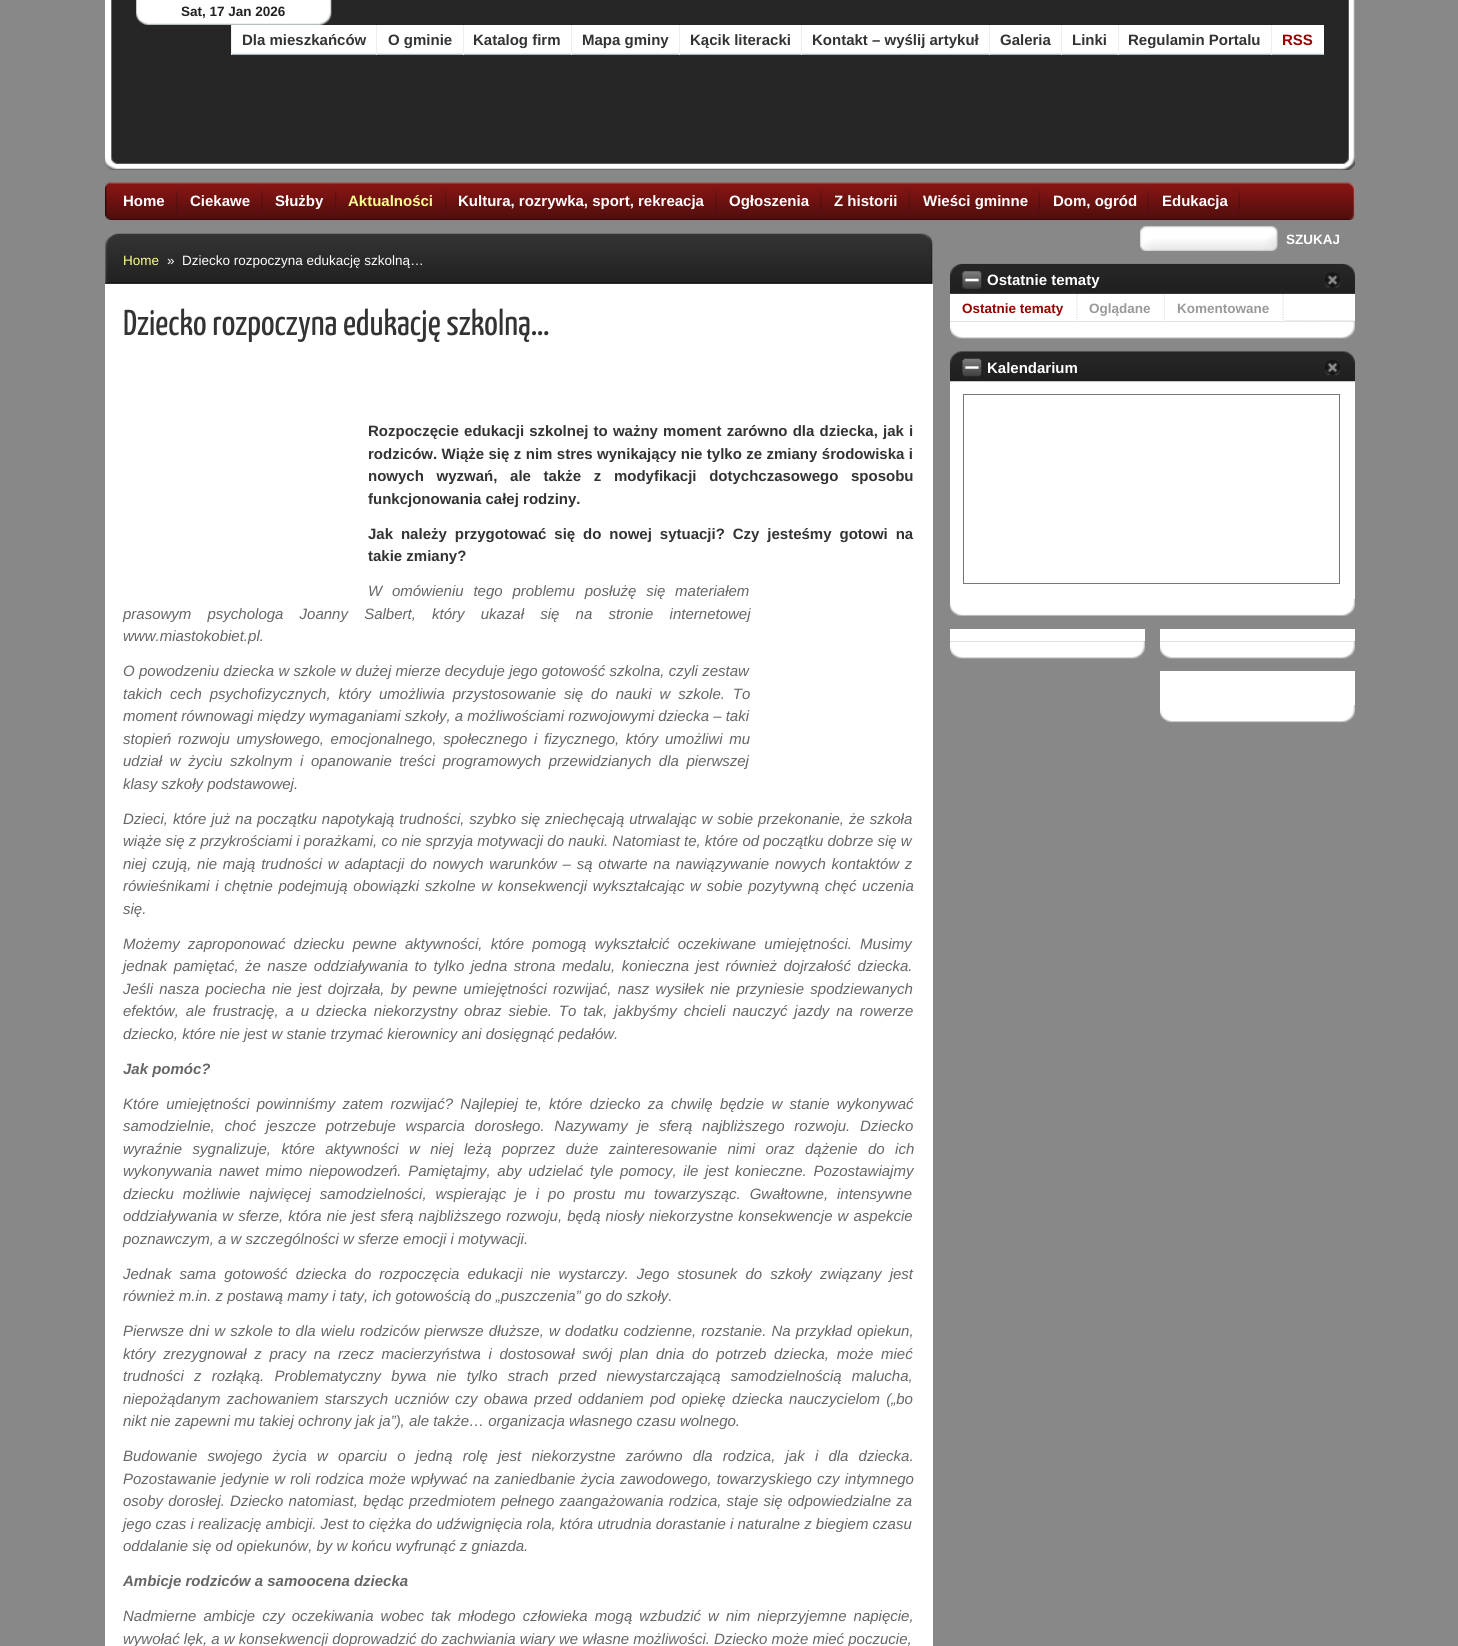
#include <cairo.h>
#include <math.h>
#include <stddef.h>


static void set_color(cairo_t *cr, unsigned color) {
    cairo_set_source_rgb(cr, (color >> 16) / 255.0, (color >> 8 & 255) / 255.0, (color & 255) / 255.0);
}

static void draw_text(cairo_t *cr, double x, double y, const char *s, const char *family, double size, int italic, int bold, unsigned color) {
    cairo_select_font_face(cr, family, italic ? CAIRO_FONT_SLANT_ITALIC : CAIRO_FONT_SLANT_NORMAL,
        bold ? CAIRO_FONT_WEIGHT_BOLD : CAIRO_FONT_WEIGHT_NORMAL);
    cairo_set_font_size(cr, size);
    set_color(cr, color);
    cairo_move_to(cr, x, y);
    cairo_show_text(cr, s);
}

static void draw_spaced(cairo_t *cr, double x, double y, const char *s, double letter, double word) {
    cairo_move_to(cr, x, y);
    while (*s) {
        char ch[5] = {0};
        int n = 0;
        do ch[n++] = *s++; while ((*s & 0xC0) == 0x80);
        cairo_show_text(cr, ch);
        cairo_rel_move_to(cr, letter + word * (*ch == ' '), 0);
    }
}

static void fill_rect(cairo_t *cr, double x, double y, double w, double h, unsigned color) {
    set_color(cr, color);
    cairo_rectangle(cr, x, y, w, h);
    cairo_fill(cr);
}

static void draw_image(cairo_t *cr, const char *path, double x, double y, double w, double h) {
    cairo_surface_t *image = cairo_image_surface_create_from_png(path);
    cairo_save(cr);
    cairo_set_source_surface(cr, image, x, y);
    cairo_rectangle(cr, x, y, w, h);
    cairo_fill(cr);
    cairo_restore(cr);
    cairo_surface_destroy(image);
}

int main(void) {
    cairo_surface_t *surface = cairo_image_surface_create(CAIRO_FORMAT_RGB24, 1458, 1646);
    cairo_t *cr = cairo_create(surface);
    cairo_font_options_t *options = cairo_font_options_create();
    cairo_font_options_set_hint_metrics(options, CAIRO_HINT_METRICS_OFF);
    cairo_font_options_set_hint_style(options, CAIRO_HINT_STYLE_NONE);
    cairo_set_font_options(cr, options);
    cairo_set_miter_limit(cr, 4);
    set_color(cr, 0x888888);
    cairo_paint(cr);
    draw_image(cr, "assets/img1.png", 105, 0, 1250, 170);
    draw_image(cr, "assets/img2.png", 136, 0, 196, 25);
    draw_text(cr, 181, 16, "Sat, 17 Jan 2026", "Liberation Sans", 13.5, 0, 1, 0x222222);
    fill_rect(cr, 232, 25, 144, 29, 0xFFFFFF);
    draw_image(cr, "assets/img3.png", 232, 53, 144, 2);
    fill_rect(cr, 231, 25, 1, 30, 0xEEEEEE);
    draw_text(cr, 242, 45, "Dla mieszkańców", "Liberation Sans", 15, 0, 1, 0x333333);
    fill_rect(cr, 377, 25, 86, 30, 0xFFFFFF);
    draw_image(cr, "assets/img4.png", 377, 53, 86, 2);
    fill_rect(cr, 376, 25, 1, 30, 0xEEEEEE);
    draw_text(cr, 388, 45, "O gminie", "Liberation Sans", 15, 0, 1, 0x333333);
    fill_rect(cr, 464, 25, 107, 29, 0xFFFFFF);
    draw_image(cr, "assets/img5.png", 462, 53, 109, 2);
    fill_rect(cr, 463, 25, 1, 30, 0xEEEEEE);
    draw_text(cr, 473, 45, "Katalog firm", "Liberation Sans", 15, 0, 1, 0x333333);
    fill_rect(cr, 572, 25, 107, 30, 0xFFFFFF);
    draw_image(cr, "assets/img6.png", 572, 53, 107, 2);
    fill_rect(cr, 571, 25, 1, 30, 0xEEEEEE);
    draw_text(cr, 582, 45, "Mapa gminy", "Liberation Sans", 15, 0, 1, 0x333333);
    fill_rect(cr, 680, 25, 121, 29, 0xFFFFFF);
    draw_image(cr, "assets/img7.png", 678, 53, 123, 2);
    fill_rect(cr, 679, 25, 1, 30, 0xEEEEEE);
    draw_text(cr, 690, 45, "Kącik literacki", "Liberation Sans", 15, 0, 1, 0x333333);
    fill_rect(cr, 802, 25, 187, 30, 0xFFFFFF);
    draw_image(cr, "assets/img8.png", 802, 53, 187, 2);
    fill_rect(cr, 801, 25, 1, 30, 0xEEEEEE);
    draw_text(cr, 812, 45, "Kontakt – wyślij artykuł", "Liberation Sans", 15, 0, 1, 0x333333);
    fill_rect(cr, 990, 25, 71, 29, 0xFFFFFF);
    draw_image(cr, "assets/img9.png", 988, 53, 73, 2);
    fill_rect(cr, 989, 25, 1, 30, 0xEEEEEE);
    draw_text(cr, 1000, 45, "Galeria", "Liberation Sans", 15, 0, 1, 0x333333);
    fill_rect(cr, 1062, 25, 56, 30, 0xFFFFFF);
    draw_image(cr, "assets/img10.png", 1062, 53, 56, 2);
    fill_rect(cr, 1061, 25, 1, 30, 0xEEEEEE);
    draw_text(cr, 1072, 45, "Linki", "Liberation Sans", 15, 0, 1, 0x333333);
    fill_rect(cr, 1119, 25, 152, 29, 0xFFFFFF);
    draw_image(cr, "assets/img11.png", 1117, 53, 154, 2);
    fill_rect(cr, 1118, 25, 1, 30, 0xEEEEEE);
    draw_text(cr, 1128, 45, "Regulamin Portalu", "Liberation Sans", 15, 0, 1, 0x333333);
    fill_rect(cr, 1272, 25, 52, 30, 0xFFFFFF);
    draw_image(cr, "assets/img12.png", 1272, 53, 52, 2);
    fill_rect(cr, 1271, 25, 1, 30, 0xEEEEEE);
    draw_text(cr, 1282, 45, "RSS", "Liberation Sans", 15, 0, 1, 0x990000);
    draw_image(cr, "assets/img13.png", 105, 182, 1250, 38);
    draw_image(cr, "assets/img14.png", 176, 190, 2, 26);
    draw_text(cr, 123, 206, "Home", "Liberation Sans", 15, 0, 1, 0xFFFFFF);
    draw_image(cr, "assets/img14.png", 261, 190, 2, 26);
    draw_text(cr, 190, 206, "Ciekawe", "Liberation Sans", 15, 0, 1, 0xFFFFFF);
    draw_image(cr, "assets/img15.png", 335, 189, 2, 27);
    draw_text(cr, 275, 206, "Służby", "Liberation Sans", 15, 0, 1, 0xFFFFFF);
    draw_image(cr, "assets/img15.png", 445, 189, 2, 27);
    draw_text(cr, 348, 206, "Aktualności", "Liberation Sans", 15, 0, 1, 0xFBFF90);
    draw_image(cr, "assets/img15.png", 715, 189, 2, 27);
    draw_text(cr, 458, 206, "Kultura, rozrywka, sport, rekreacja", "Liberation Sans", 15, 0, 1, 0xFFFFFF);
    draw_image(cr, "assets/img15.png", 820, 189, 2, 27);
    draw_text(cr, 729, 206, "Ogłoszenia", "Liberation Sans", 15, 0, 1, 0xFFFFFF);
    draw_image(cr, "assets/img16.png", 908, 189, 2, 27);
    draw_text(cr, 834, 206, "Z historii", "Liberation Sans", 15, 0, 1, 0xFFFFFF);
    draw_image(cr, "assets/img16.png", 1038, 189, 2, 27);
    draw_text(cr, 923, 206, "Wieści gminne", "Liberation Sans", 15, 0, 1, 0xFFFFFF);
    draw_image(cr, "assets/img17.png", 1147, 190, 2, 26);
    draw_text(cr, 1053, 206, "Dom, ogród", "Liberation Sans", 15, 0, 1, 0xFFFFFF);
    draw_image(cr, "assets/img16.png", 1238, 189, 2, 27);
    draw_text(cr, 1162, 206, "Edukacja", "Liberation Sans", 15, 0, 1, 0xFFFFFF);
    draw_image(cr, "assets/img18.png", 1140, 226, 138, 26);
    draw_text(cr, 1286, 244, "SZUKAJ", "Liberation Sans", 13.5, 0, 1, 0xFFFFFF);
    draw_image(cr, "assets/img19.png", 105, 233, 828, 51);
    draw_text(cr, 123, 265, "Home", "Liberation Sans", 13.5, 0, 0, 0xFBFF90);
    draw_text(cr, 167, 265, "»  Dziecko rozpoczyna edukację szkolną…", "Liberation Sans", 13.5, 0, 0, 0xFFFFFF);
    fill_rect(cr, 105, 284, 828, 1362, 0xFFFFFF);
    draw_text(cr, 123, 335, "Dziecko rozpoczyna edukację szkolną…", "Yanone Kaffeesatz", 36, 0, 0, 0x333333);
    cairo_select_font_face(cr, "Liberation Sans", CAIRO_FONT_SLANT_NORMAL, CAIRO_FONT_WEIGHT_BOLD);
    cairo_set_font_size(cr, 15);
    draw_spaced(cr, 368, 436, "Rozpoczęcie edukacji szkolnej to ważny moment zarówno dla dziecka, jak i", 0, 1);
    draw_spaced(cr, 368, 459, "rodziców. Wiąże się z nim stres wynikający nie tylko ze zmiany środowiska i", 0, 0.25);
    draw_spaced(cr, 368, 481, "nowych wyzwań, ale także z modyfikacji dotychczasowego sposobu", 0, 8.5);
    draw_text(cr, 368, 504, "funkcjonowania całej rodziny.", "Liberation Sans", 15, 0, 1, 0x333333);
    draw_spaced(cr, 368, 539, "Jak należy przygotować się do nowej sytuacji? Czy jesteśmy gotowi na", 0, 3.75);
    draw_text(cr, 368, 561, "takie zmiany?", "Liberation Sans", 15, 0, 1, 0x333333);
    cairo_select_font_face(cr, "Liberation Sans", CAIRO_FONT_SLANT_ITALIC, CAIRO_FONT_WEIGHT_NORMAL);
    set_color(cr, 0x666666);
    draw_spaced(cr, 368, 596, "W omówieniu tego problemu posłużę się materiałem", 0, 5.6);
    draw_spaced(cr, 123, 619, "prasowym psychologa Joanny Salbert, który ukazał się na stronie internetowej", 0, 12);
    draw_text(cr, 123, 641, "www.miastokobiet.pl.", "Liberation Sans", 15, 1, 0, 0x666666);
    draw_spaced(cr, 123, 676, "O powodzeniu dziecka w szkole w dużej mierze decyduje jego gotowość szkolna, czyli zestaw", 0, 0.1);
    draw_spaced(cr, 123, 699, "takich cech psychofizycznych, który umożliwia przystosowanie się do nauki w szkole. To", 0, 3.75);
    draw_text(cr, 123, 721, "moment równowagi między wymaganiami szkoły, a możliwościami rozwojowymi dziecka – taki", "Liberation Sans", 15, 1, 0, 0x666666);
    draw_spaced(cr, 123, 744, "stopień rozwoju umysłowego, emocjonalnego, społecznego i fizycznego, który umożliwi mu", 0, 2.5);
    draw_spaced(cr, 123, 766, "udział w życiu szkolnym i opanowanie treści programowych przewidzianych dla pierwszej", 0, 3.4);
    draw_text(cr, 123, 789, "klasy szkoły podstawowej.", "Liberation Sans", 15, 1, 0, 0x666666);
    draw_spaced(cr, 123, 824, "Dzieci, które już na początku napotykają trudności, szybko się zniechęcają utrwalając w sobie przekonanie, że szkoła", 0, 0.75);
    draw_text(cr, 123, 846, "wiąże się z przykrościami i porażkami, co nie sprzyja motywacji do nauki. Natomiast te, które od początku dobrze się w", "Liberation Sans", 15, 1, 0, 0x666666);
    draw_spaced(cr, 123, 869, "niej czują, nie mają trudności w adaptacji do nowych warunków – są otwarte na nawiązywanie nowych kontaktów z", 0, 1.6);
    draw_spaced(cr, 123, 891, "rówieśnikami i chętnie podejmują obowiązki szkolne w konsekwencji wykształcając w sobie pozytywną chęć uczenia", 0, 1.5);
    draw_text(cr, 123, 914, "się.", "Liberation Sans", 15, 1, 0, 0x666666);
    draw_spaced(cr, 123, 949, "Możemy zaproponować dziecku pewne aktywności, które pomogą wykształcić oczekiwane umiejętności. Musimy", 0, 4);
    draw_spaced(cr, 123, 971, "jednak pamiętać, że nasze oddziaływania to tylko jedna strona medalu, konieczna jest również dojrzałość dziecka.", 0, 2.25);
    draw_spaced(cr, 123, 994, "Jeśli nasza pociecha nie jest dojrzała, by pewne umiejętności rozwijać, nasz wysiłek nie przyniesie spodziewanych", 0, 2.1);
    draw_spaced(cr, 123, 1016, "efektów, ale frustrację, a u dziecka niekorzystny obraz siebie. To tak, jakbyśmy chcieli nauczyć jazdy na rowerze", 0, 2.75);
    draw_text(cr, 123, 1039, "dziecko, które nie jest w stanie trzymać kierownicy ani dosięgnąć pedałów.", "Liberation Sans", 15, 1, 0, 0x666666);
    draw_text(cr, 123, 1074, "Jak pomóc?", "Liberation Sans", 15, 1, 1, 0x666666);
    cairo_select_font_face(cr, "Liberation Sans", CAIRO_FONT_SLANT_ITALIC, CAIRO_FONT_WEIGHT_NORMAL);
    draw_spaced(cr, 123, 1109, "Które umiejętności powinniśmy zatem rozwijać? Najlepiej te, które dziecko za chwilę będzie w stanie wykonywać", 0, 3.1);
    draw_spaced(cr, 123, 1131, "samodzielnie, choć jeszcze potrzebuje wsparcia dorosłego. Nazywamy je sferą najbliższego rozwoju. Dziecko", 0, 5.6);
    draw_spaced(cr, 123, 1154, "wyraźnie sygnalizuje, które aktywności w niej leżą poprzez duże zainteresowanie nimi oraz dążenie do ich", 0, 6.25);
    draw_spaced(cr, 123, 1176, "wykonywania nawet mimo niepowodzeń. Pamiętajmy, aby udzielać tyle pomocy, ile jest konieczne. Pozostawiajmy", 0, 2.5);
    draw_spaced(cr, 123, 1199, "dziecku możliwie najwięcej samodzielności, wspierając je i po prostu mu towarzysząc. Gwałtowne, intensywne", 0, 4.75);
    draw_spaced(cr, 123, 1221, "oddziaływania w sferze, która nie jest sferą najbliższego rozwoju, będą niosły niekorzystne konsekwencje w aspekcie", 0, 0.9);
    draw_text(cr, 123, 1244, "poznawczym, a w szczególności w sferze emocji i motywacji.", "Liberation Sans", 15, 1, 0, 0x666666);
    draw_spaced(cr, 123, 1279, "Jednak sama gotowość dziecka do rozpoczęcia edukacji nie wystarczy. Jego stosunek do szkoły związany jest", 0, 3.9);
    draw_text(cr, 123, 1301, "również m.in. z postawą mamy i taty, ich gotowością do „puszczenia” go do szkoły.", "Liberation Sans", 15, 1, 0, 0x666666);
    draw_spaced(cr, 123, 1336, "Pierwsze dni w szkole to dla wielu rodziców pierwsze dłuższe, w dodatku codzienne, rozstanie. Na przykład opiekun,", 0, 1);
    draw_spaced(cr, 123, 1359, "który zrezygnował z pracy na rzecz macierzyństwa i dostosował swój plan dnia do potrzeb dziecka, może mieć", 0, 3.5);
    draw_spaced(cr, 123, 1381, "trudności z rozłąką. Problematyczny bywa nie tylko strach przed niewystarczającą samodzielnością malucha,", 0, 6);
    draw_spaced(cr, 123, 1404, "niepożądanym zachowaniem starszych uczniów czy obawa przed oddaniem pod opiekę dziecka nauczycielom („bo", 0, 2.1);
    draw_text(cr, 123, 1426, "nikt nie zapewni mu takiej ochrony jak ja”), ale także… organizacja własnego czasu wolnego.", "Liberation Sans", 15, 1, 0, 0x666666);
    draw_spaced(cr, 123, 1461, "Budowanie swojego życia w oparciu o jedną rolę jest niekorzystne zarówno dla rodzica, jak i dla dziecka.", 0, 6);
    draw_spaced(cr, 123, 1484, "Pozostawanie jedynie w roli rodzica może wpływać na zaniedbanie życia zawodowego, towarzyskiego czy intymnego", 0, 1);
    draw_spaced(cr, 123, 1506, "osoby dorosłej. Dziecko natomiast, będąc przedmiotem pełnego zaangażowania rodzica, staje się odpowiedzialne za", 0, 1);
    draw_text(cr, 123, 1529, "jego czas i realizację ambicji. Jest to ciężka do udźwignięcia rola, która utrudnia dorastanie i naturalne z biegiem czasu", "Liberation Sans", 15, 1, 0, 0x666666);
    draw_text(cr, 123, 1551, "oddalanie się od opiekunów, by w końcu wyfrunąć z gniazda.", "Liberation Sans", 15, 1, 0, 0x666666);
    draw_text(cr, 123, 1586, "Ambicje rodziców a samoocena dziecka", "Liberation Sans", 15, 1, 1, 0x666666);
    cairo_select_font_face(cr, "Liberation Sans", CAIRO_FONT_SLANT_ITALIC, CAIRO_FONT_WEIGHT_NORMAL);
    draw_spaced(cr, 123, 1621, "Nadmierne ambicje czy oczekiwania wobec tak młodego człowieka mogą wzbudzić w nim nieprzyjemne napięcie,", 0, 2.9);
    draw_text(cr, 123, 1644, "wywołać lęk, a w konsekwencji doprowadzić do zachwiania wiary we własne możliwości. Dziecko może mieć poczucie,", "Liberation Sans", 15, 1, 0, 0x666666);
    draw_image(cr, "assets/img20.png", 950, 263, 405, 31);
    draw_image(cr, "assets/img21.png", 962, 271, 20, 18);
    draw_text(cr, 987, 285, "Ostatnie tematy", "Liberation Sans", 15, 0, 1, 0xFFFFFF);
    draw_image(cr, "assets/img22.png", 1325, 272, 15, 16);
    fill_rect(cr, 1284, 294, 71, 27, 0xFFFFFF);
    cairo_new_path(cr);
    cairo_move_to(cr, 950, 320.5);
    cairo_line_to(cr, 1355, 320.5);
    set_color(cr, 0xDDDDDD);
    cairo_set_line_width(cr, 1.2);
    cairo_set_dash(cr, (double[]){1.25, 1.25}, 2, 0);
    cairo_stroke(cr);
    fill_rect(cr, 950, 294, 215, 27, 0xFFFFFF);
    cairo_new_path(cr);
    cairo_move_to(cr, 1077, 294);
    cairo_line_to(cr, 1077, 321);
    set_color(cr, 0xDDDDDD);
    cairo_stroke(cr);
    draw_text(cr, 962, 313, "Ostatnie tematy", "Liberation Sans", 13.5, 0, 1, 0x990000);
    cairo_new_path(cr);
    cairo_move_to(cr, 1164.5, 294);
    cairo_line_to(cr, 1164.5, 321);
    set_color(cr, 0xDDDDDD);
    cairo_stroke(cr);
    draw_text(cr, 1089, 313, "Oglądane", "Liberation Sans", 13.5, 0, 1, 0x999999);
    fill_rect(cr, 1165, 294, 119, 27, 0xFFFFFF);
    cairo_new_path(cr);
    cairo_move_to(cr, 1283, 294);
    cairo_line_to(cr, 1283, 321);
    set_color(cr, 0xDDDDDD);
    cairo_stroke(cr);
    draw_text(cr, 1177, 313, "Komentowane", "Liberation Sans", 13.5, 0, 1, 0x999999);
    draw_image(cr, "assets/img23.png", 950, 321, 405, 18);
    fill_rect(cr, 950, 381, 405, 218, 0xFFFFFF);
    draw_image(cr, "assets/img24.png", 950, 351, 405, 31);
    draw_image(cr, "assets/img25.png", 962, 358, 20, 19);
    draw_text(cr, 987, 373, "Kalendarium", "Liberation Sans", 15, 0, 1, 0xFFFFFF);
    draw_image(cr, "assets/img26.png", 1325, 360, 15, 16);
    cairo_rectangle(cr, 963.5, 394.5, 376, 189);
    set_color(cr, 0x777777);
    cairo_set_line_width(cr, 1);
    cairo_set_dash(cr, NULL, 0, 0);
    cairo_stroke(cr);
    draw_image(cr, "assets/img27.png", 950, 598, 405, 18);
    fill_rect(cr, 950, 629, 195, 12, 0xFFFFFF);
    draw_image(cr, "assets/img28.png", 950, 641, 195, 18);
    fill_rect(cr, 1160, 629, 195, 12, 0xFFFFFF);
    draw_image(cr, "assets/img29.png", 1160, 641, 195, 18);
    fill_rect(cr, 1160, 671, 195, 34, 0xFFFFFF);
    draw_image(cr, "assets/img30.png", 1160, 705, 195, 18);
    cairo_surface_write_to_png(surface, "output.png");
    cairo_font_options_destroy(options);
    cairo_destroy(cr);
    cairo_surface_destroy(surface);
    return 0;
}
